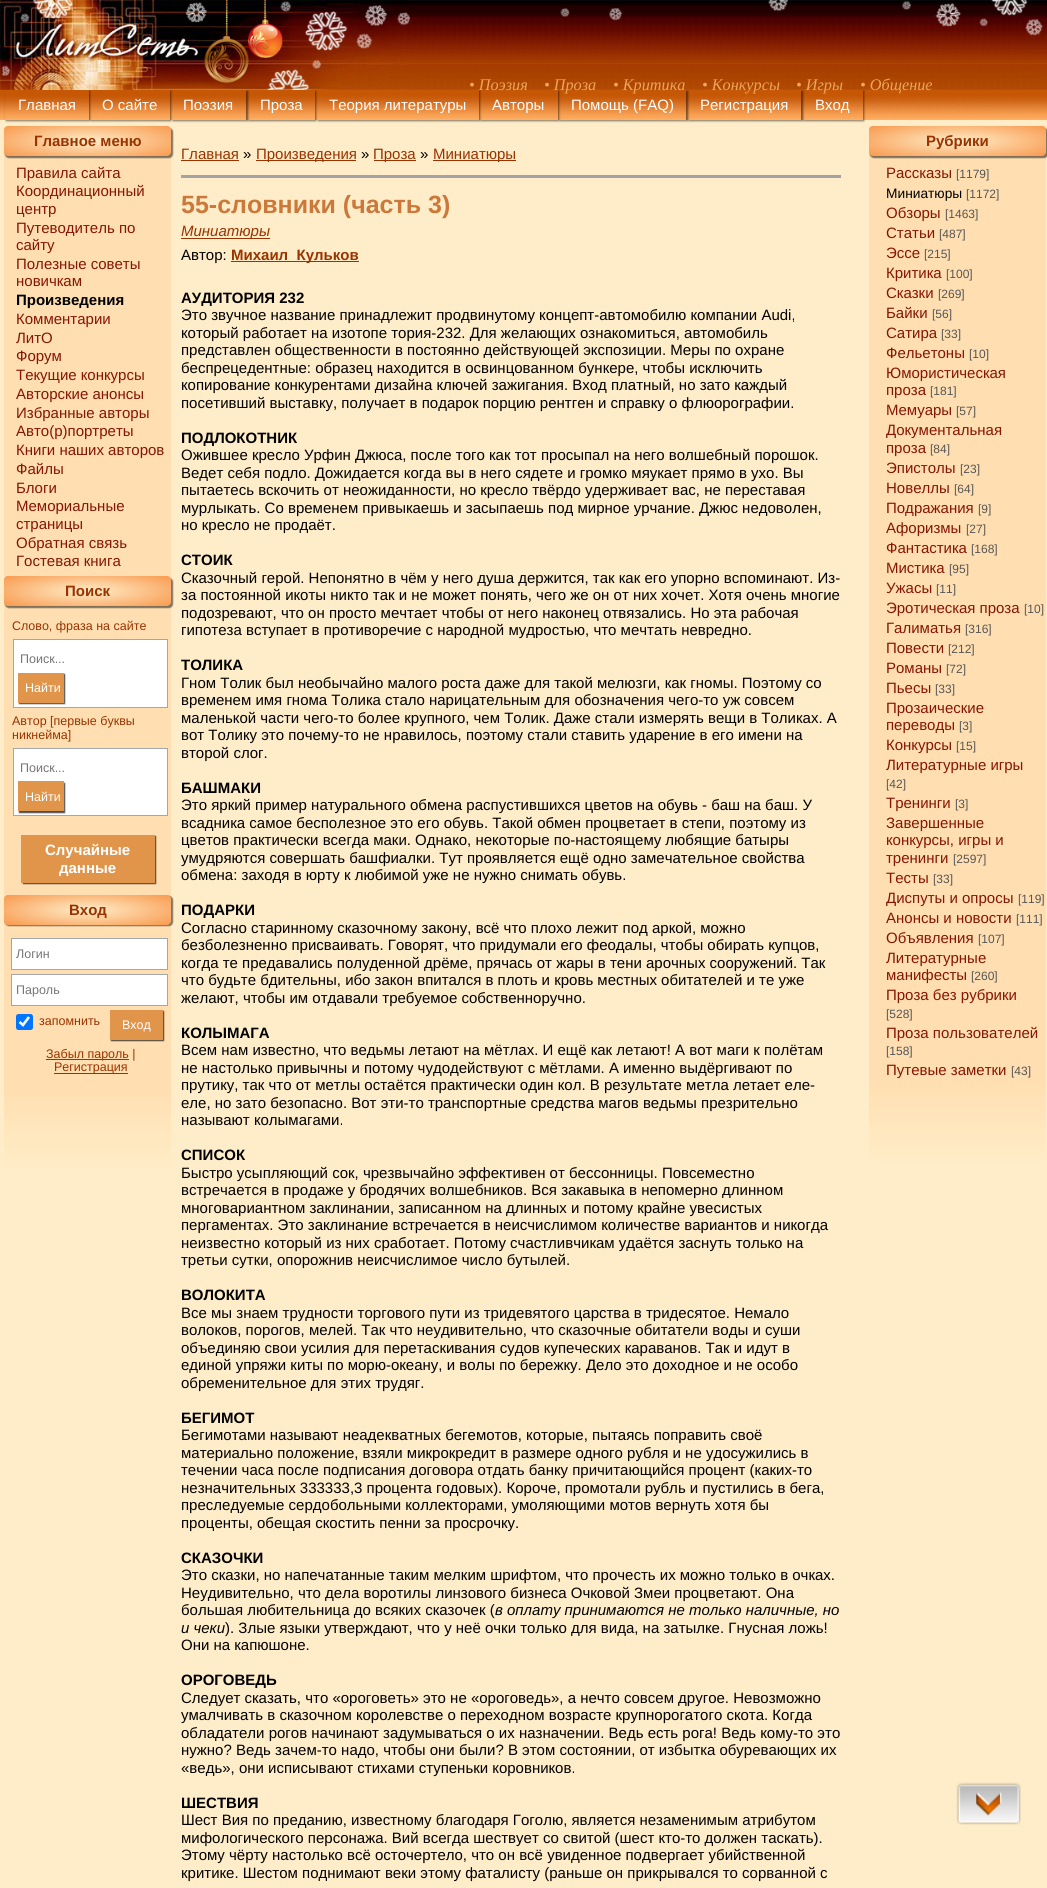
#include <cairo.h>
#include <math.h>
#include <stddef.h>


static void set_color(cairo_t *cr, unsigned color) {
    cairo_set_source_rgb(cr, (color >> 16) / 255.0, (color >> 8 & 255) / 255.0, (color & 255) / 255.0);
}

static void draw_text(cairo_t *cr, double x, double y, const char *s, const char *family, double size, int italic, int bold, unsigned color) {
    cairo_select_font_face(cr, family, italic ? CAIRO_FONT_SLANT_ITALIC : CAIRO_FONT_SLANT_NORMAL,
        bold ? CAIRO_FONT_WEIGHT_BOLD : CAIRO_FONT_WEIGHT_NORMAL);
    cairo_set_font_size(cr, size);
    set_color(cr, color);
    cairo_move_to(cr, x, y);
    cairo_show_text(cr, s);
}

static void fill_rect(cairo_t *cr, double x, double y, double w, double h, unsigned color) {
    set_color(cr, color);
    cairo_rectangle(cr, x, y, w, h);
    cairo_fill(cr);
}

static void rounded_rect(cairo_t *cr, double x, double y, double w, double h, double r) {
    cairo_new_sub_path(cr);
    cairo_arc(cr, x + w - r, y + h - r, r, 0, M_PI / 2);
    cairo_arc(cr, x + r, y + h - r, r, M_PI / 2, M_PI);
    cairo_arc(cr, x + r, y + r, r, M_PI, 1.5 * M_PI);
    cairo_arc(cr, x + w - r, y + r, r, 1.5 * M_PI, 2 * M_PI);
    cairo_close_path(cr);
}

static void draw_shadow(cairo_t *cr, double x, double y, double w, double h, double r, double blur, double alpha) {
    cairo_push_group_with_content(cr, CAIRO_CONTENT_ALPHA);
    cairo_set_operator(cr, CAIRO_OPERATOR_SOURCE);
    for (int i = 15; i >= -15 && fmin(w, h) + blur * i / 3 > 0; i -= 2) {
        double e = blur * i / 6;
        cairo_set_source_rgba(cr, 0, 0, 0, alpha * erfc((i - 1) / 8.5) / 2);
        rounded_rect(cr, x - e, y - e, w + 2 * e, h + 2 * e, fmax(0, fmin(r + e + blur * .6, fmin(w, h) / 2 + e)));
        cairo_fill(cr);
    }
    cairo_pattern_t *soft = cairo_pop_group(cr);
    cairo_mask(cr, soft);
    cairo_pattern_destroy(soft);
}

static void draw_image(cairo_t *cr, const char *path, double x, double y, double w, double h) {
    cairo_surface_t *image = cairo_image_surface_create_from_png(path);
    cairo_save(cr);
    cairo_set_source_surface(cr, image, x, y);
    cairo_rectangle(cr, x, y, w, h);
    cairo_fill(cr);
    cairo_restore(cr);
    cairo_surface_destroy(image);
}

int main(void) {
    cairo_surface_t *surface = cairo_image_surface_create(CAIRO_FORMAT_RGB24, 1047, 1888);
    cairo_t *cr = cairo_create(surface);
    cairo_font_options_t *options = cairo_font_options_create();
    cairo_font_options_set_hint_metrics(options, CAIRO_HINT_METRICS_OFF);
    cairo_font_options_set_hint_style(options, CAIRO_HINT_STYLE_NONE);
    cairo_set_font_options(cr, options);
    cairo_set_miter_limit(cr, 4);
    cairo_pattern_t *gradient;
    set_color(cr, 0xFFEDC9);
    cairo_paint(cr);
    draw_image(cr, "assets/img2.png", 0, 90, 1047, 30);
    cairo_save(cr);
    cairo_set_fill_rule(cr, CAIRO_FILL_RULE_EVEN_ODD);
    cairo_new_path(cr);
    cairo_move_to(cr, 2, 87);
    cairo_line_to(cr, 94, 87);
    cairo_line_to(cr, 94, 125);
    cairo_line_to(cr, 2, 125);
    cairo_close_path(cr);
    cairo_move_to(cr, 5, 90);
    cairo_line_to(cr, 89, 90);
    cairo_line_to(cr, 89, 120);
    cairo_line_to(cr, 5, 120);
    cairo_close_path(cr);
    cairo_clip(cr);
    set_color(cr, 0x000000);
    draw_shadow(cr, 6, 91, 84, 30, 0, 1, 0.5);
    cairo_restore(cr);
    cairo_save(cr);
    cairo_set_fill_rule(cr, CAIRO_FILL_RULE_EVEN_ODD);
    cairo_new_path(cr);
    cairo_move_to(cr, 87, 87);
    cairo_line_to(cr, 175, 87);
    cairo_line_to(cr, 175, 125);
    cairo_line_to(cr, 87, 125);
    cairo_close_path(cr);
    cairo_move_to(cr, 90, 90);
    cairo_line_to(cr, 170, 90);
    cairo_line_to(cr, 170, 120);
    cairo_line_to(cr, 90, 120);
    cairo_close_path(cr);
    cairo_clip(cr);
    set_color(cr, 0x000000);
    draw_shadow(cr, 91, 91, 80, 30, 0, 1, 0.5);
    cairo_restore(cr);
    cairo_save(cr);
    cairo_set_fill_rule(cr, CAIRO_FILL_RULE_EVEN_ODD);
    cairo_new_path(cr);
    cairo_move_to(cr, 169, 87);
    cairo_line_to(cr, 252, 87);
    cairo_line_to(cr, 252, 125);
    cairo_line_to(cr, 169, 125);
    cairo_close_path(cr);
    cairo_move_to(cr, 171, 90);
    cairo_line_to(cr, 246, 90);
    cairo_line_to(cr, 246, 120);
    cairo_line_to(cr, 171, 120);
    cairo_close_path(cr);
    cairo_clip(cr);
    set_color(cr, 0x000000);
    draw_shadow(cr, 173, 91, 75, 30, 0, 1, 0.5);
    cairo_restore(cr);
    cairo_save(cr);
    cairo_set_fill_rule(cr, CAIRO_FILL_RULE_EVEN_ODD);
    cairo_new_path(cr);
    cairo_move_to(cr, 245, 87);
    cairo_line_to(cr, 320, 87);
    cairo_line_to(cr, 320, 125);
    cairo_line_to(cr, 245, 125);
    cairo_close_path(cr);
    cairo_move_to(cr, 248, 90);
    cairo_line_to(cr, 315, 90);
    cairo_line_to(cr, 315, 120);
    cairo_line_to(cr, 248, 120);
    cairo_close_path(cr);
    cairo_clip(cr);
    set_color(cr, 0x000000);
    draw_shadow(cr, 249, 91, 67, 30, 0, 1, 0.5);
    cairo_restore(cr);
    cairo_save(cr);
    cairo_set_fill_rule(cr, CAIRO_FILL_RULE_EVEN_ODD);
    cairo_new_path(cr);
    cairo_move_to(cr, 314, 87);
    cairo_line_to(cr, 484, 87);
    cairo_line_to(cr, 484, 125);
    cairo_line_to(cr, 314, 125);
    cairo_close_path(cr);
    cairo_move_to(cr, 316, 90);
    cairo_line_to(cr, 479, 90);
    cairo_line_to(cr, 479, 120);
    cairo_line_to(cr, 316, 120);
    cairo_close_path(cr);
    cairo_clip(cr);
    set_color(cr, 0x000000);
    draw_shadow(cr, 318, 91, 162, 30, 0, 1, 0.5);
    cairo_restore(cr);
    cairo_save(cr);
    cairo_set_fill_rule(cr, CAIRO_FILL_RULE_EVEN_ODD);
    cairo_new_path(cr);
    cairo_move_to(cr, 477, 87);
    cairo_line_to(cr, 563, 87);
    cairo_line_to(cr, 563, 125);
    cairo_line_to(cr, 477, 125);
    cairo_close_path(cr);
    cairo_move_to(cr, 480, 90);
    cairo_line_to(cr, 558, 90);
    cairo_line_to(cr, 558, 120);
    cairo_line_to(cr, 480, 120);
    cairo_close_path(cr);
    cairo_clip(cr);
    set_color(cr, 0x000000);
    draw_shadow(cr, 481, 91, 78, 30, 0, 1, 0.5);
    cairo_restore(cr);
    cairo_save(cr);
    cairo_set_fill_rule(cr, CAIRO_FILL_RULE_EVEN_ODD);
    cairo_new_path(cr);
    cairo_move_to(cr, 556, 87);
    cairo_line_to(cr, 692, 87);
    cairo_line_to(cr, 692, 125);
    cairo_line_to(cr, 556, 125);
    cairo_close_path(cr);
    cairo_move_to(cr, 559, 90);
    cairo_line_to(cr, 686, 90);
    cairo_line_to(cr, 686, 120);
    cairo_line_to(cr, 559, 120);
    cairo_close_path(cr);
    cairo_clip(cr);
    set_color(cr, 0x000000);
    draw_shadow(cr, 560, 91, 128, 30, 0, 1, 0.5);
    cairo_restore(cr);
    cairo_save(cr);
    cairo_set_fill_rule(cr, CAIRO_FILL_RULE_EVEN_ODD);
    cairo_new_path(cr);
    cairo_move_to(cr, 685, 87);
    cairo_line_to(cr, 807, 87);
    cairo_line_to(cr, 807, 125);
    cairo_line_to(cr, 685, 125);
    cairo_close_path(cr);
    cairo_move_to(cr, 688, 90);
    cairo_line_to(cr, 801, 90);
    cairo_line_to(cr, 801, 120);
    cairo_line_to(cr, 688, 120);
    cairo_close_path(cr);
    cairo_clip(cr);
    set_color(cr, 0x000000);
    draw_shadow(cr, 689, 91, 114, 30, 0, 1, 0.5);
    cairo_restore(cr);
    cairo_save(cr);
    cairo_set_fill_rule(cr, CAIRO_FILL_RULE_EVEN_ODD);
    cairo_new_path(cr);
    cairo_move_to(cr, 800, 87);
    cairo_line_to(cr, 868, 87);
    cairo_line_to(cr, 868, 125);
    cairo_line_to(cr, 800, 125);
    cairo_close_path(cr);
    cairo_move_to(cr, 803, 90);
    cairo_line_to(cr, 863, 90);
    cairo_line_to(cr, 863, 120);
    cairo_line_to(cr, 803, 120);
    cairo_close_path(cr);
    cairo_clip(cr);
    set_color(cr, 0x000000);
    draw_shadow(cr, 804, 91, 60, 30, 0, 1, 0.5);
    cairo_restore(cr);
    draw_image(cr, "assets/img1.png", 0, 0, 1047, 90);
    draw_text(cr, 469, 90, "• Поэзия", "Liberation Serif", 16.25, 1, 0, 0xEEA55A);
    draw_text(cr, 544, 90, "• Проза", "Liberation Serif", 16.25, 1, 0, 0xEEA55A);
    draw_text(cr, 613, 90, "• Критика", "Liberation Serif", 16.25, 1, 0, 0xEEA55A);
    draw_text(cr, 702, 90, "• Конкурсы", "Liberation Serif", 16.25, 1, 0, 0xEEA55A);
    draw_text(cr, 796, 90, "• Игры", "Liberation Serif", 16.25, 1, 0, 0xEEA55A);
    draw_text(cr, 860, 90, "• Общение", "Liberation Serif", 16.25, 1, 0, 0xEEA55A);
    draw_text(cr, 18, 110, "Главная", "Liberation Sans", 15, 0, 0, 0xFFFFFF);
    draw_text(cr, 102, 110, "О сайте", "Liberation Sans", 15, 0, 0, 0xFFFFFF);
    draw_text(cr, 183, 110, "Поэзия", "Liberation Sans", 15, 0, 0, 0xFFFFFF);
    draw_text(cr, 260, 110, "Проза", "Liberation Sans", 15, 0, 0, 0xFFFFFF);
    draw_text(cr, 329, 110, "Теория литературы", "Liberation Sans", 15, 0, 0, 0xFFFFFF);
    draw_text(cr, 492, 110, "Авторы", "Liberation Sans", 15, 0, 0, 0xFFFFFF);
    draw_text(cr, 571, 110, "Помощь (FAQ)", "Liberation Sans", 15, 0, 0, 0xFFFFFF);
    draw_text(cr, 700, 110, "Регистрация", "Liberation Sans", 15, 0, 0, 0xFFFFFF);
    draw_text(cr, 815, 110, "Вход", "Liberation Sans", 15, 0, 0, 0xFFFFFF);
    set_color(cr, 0xFFDFB1);
    cairo_new_path(cr);
    cairo_move_to(cr, 8, 126);
    cairo_line_to(cr, 167, 126);
    cairo_curve_to(cr, 169, 126, 171, 128, 171, 130);
    cairo_line_to(cr, 171, 1174);
    cairo_line_to(cr, 4, 1174);
    cairo_line_to(cr, 4, 130);
    cairo_curve_to(cr, 4, 128, 6, 126, 8, 126);
    cairo_close_path(cr);
    cairo_fill(cr);
    set_color(cr, 0x000000);
    draw_shadow(cr, 5, 128, 168, 30, 4, 0.5, 0.5);
    gradient = cairo_pattern_create_radial(0, 0, 0, 0, 0, 1);
    cairo_pattern_set_matrix(gradient, &(cairo_matrix_t){1.0 / 134, 0, 0, 1.0 / 27, -1.0 * 88 / 134, -1.0 * 141 / 27});
    cairo_pattern_add_color_stop_rgba(gradient, 0, 1, 0.929, 0.788, 1);
    cairo_pattern_add_color_stop_rgba(gradient, 1, 0.969, 0.537, 0.208, 1);
    cairo_set_source(cr, gradient);
    cairo_pattern_destroy(gradient);
    rounded_rect(cr, 4, 126, 167, 30, 4);
    cairo_fill(cr);
    draw_text(cr, 34, 146, "Главное меню", "Liberation Sans", 15, 0, 1, 0x993300);
    draw_text(cr, 16, 178, "Правила сайта", "Liberation Sans", 15, 0, 0, 0x861503);
    draw_text(cr, 16, 196, "Координационный", "Liberation Sans", 15, 0, 0, 0x861503);
    draw_text(cr, 16, 214, "центр", "Liberation Sans", 15, 0, 0, 0x861503);
    draw_text(cr, 16, 233, "Путеводитель по", "Liberation Sans", 15, 0, 0, 0x861503);
    draw_text(cr, 16, 250, "сайту", "Liberation Sans", 15, 0, 0, 0x861503);
    draw_text(cr, 16, 269, "Полезные советы", "Liberation Sans", 15, 0, 0, 0x861503);
    draw_text(cr, 16, 286, "новичкам", "Liberation Sans", 15, 0, 0, 0x861503);
    draw_text(cr, 16, 305, "Произведения", "Liberation Sans", 15, 0, 1, 0x000000);
    draw_text(cr, 16, 324, "Комментарии", "Liberation Sans", 15, 0, 0, 0x861503);
    draw_text(cr, 16, 343, "ЛитО", "Liberation Sans", 15, 0, 0, 0x861503);
    draw_text(cr, 16, 361, "Форум", "Liberation Sans", 15, 0, 0, 0x861503);
    draw_text(cr, 16, 380, "Текущие конкурсы", "Liberation Sans", 15, 0, 0, 0x861503);
    draw_text(cr, 16, 399, "Авторские анонсы", "Liberation Sans", 15, 0, 0, 0x861503);
    draw_text(cr, 16, 418, "Избранные авторы", "Liberation Sans", 15, 0, 0, 0x861503);
    draw_text(cr, 16, 436, "Авто(р)портреты", "Liberation Sans", 15, 0, 0, 0x861503);
    draw_text(cr, 16, 455, "Книги наших авторов", "Liberation Sans", 15, 0, 0, 0x861503);
    draw_text(cr, 16, 474, "Файлы", "Liberation Sans", 15, 0, 0, 0x861503);
    draw_text(cr, 16, 493, "Блоги", "Liberation Sans", 15, 0, 0, 0x861503);
    draw_text(cr, 16, 511, "Мемориальные", "Liberation Sans", 15, 0, 0, 0x861503);
    draw_text(cr, 16, 529, "страницы", "Liberation Sans", 15, 0, 0, 0x861503);
    draw_text(cr, 16, 548, "Обратная связь", "Liberation Sans", 15, 0, 0, 0x861503);
    draw_text(cr, 16, 566, "Гостевая книга", "Liberation Sans", 15, 0, 0, 0x861503);
    set_color(cr, 0x000000);
    draw_shadow(cr, 5, 578, 168, 30, 4, 0.5, 0.5);
    gradient = cairo_pattern_create_radial(0, 0, 0, 0, 0, 1);
    cairo_pattern_set_matrix(gradient, &(cairo_matrix_t){1.0 / 134, 0, 0, 1.0 / 27, -1.0 * 88 / 134, -1.0 * 591 / 27});
    cairo_pattern_add_color_stop_rgba(gradient, 0, 1, 0.929, 0.788, 1);
    cairo_pattern_add_color_stop_rgba(gradient, 1, 0.969, 0.537, 0.208, 1);
    cairo_set_source(cr, gradient);
    cairo_pattern_destroy(gradient);
    rounded_rect(cr, 4, 576, 167, 30, 4);
    cairo_fill(cr);
    draw_text(cr, 65, 596, "Поиск", "Liberation Sans", 15, 0, 1, 0x993300);
    draw_text(cr, 12, 630, "Слово, фраза на сайте", "Liberation Sans", 12.5, 0, 0, 0x993300);
    set_color(cr, 0xFFFFFF);
    cairo_rectangle(cr, 13.5, 639.5, 154, 68);
    cairo_fill_preserve(cr);
    set_color(cr, 0xA0A8AC);
    cairo_set_line_width(cr, 1);
    cairo_stroke(cr);
    draw_text(cr, 20, 663, "Поиск...", "Liberation Sans", 12.5, 0, 0, 0x757575);
    set_color(cr, 0x000000);
    draw_shadow(cr, 19, 674, 46, 30, 0, 0.5, 0.7);
    fill_rect(cr, 18, 673, 46, 30, 0xE1954A);
    draw_text(cr, 25, 692, "Найти", "Liberation Sans", 12.5, 0, 0, 0xFFFFFF);
    draw_text(cr, 12, 725, "Автор [первые буквы", "Liberation Sans", 12.5, 0, 0, 0x993300);
    draw_text(cr, 12, 739, "никнейма]", "Liberation Sans", 12.5, 0, 0, 0x993300);
    set_color(cr, 0xFFFFFF);
    cairo_rectangle(cr, 13.5, 748.5, 154, 67);
    cairo_fill_preserve(cr);
    set_color(cr, 0xA0A8AC);
    cairo_stroke(cr);
    draw_text(cr, 20, 772, "Поиск...", "Liberation Sans", 12.5, 0, 0, 0x757575);
    set_color(cr, 0x000000);
    draw_shadow(cr, 19, 783, 46, 30, 0, 0.5, 0.7);
    fill_rect(cr, 18, 781, 46, 30, 0xE1954A);
    draw_text(cr, 25, 801, "Найти", "Liberation Sans", 12.5, 0, 0, 0xFFFFFF);
    set_color(cr, 0x000000);
    draw_shadow(cr, 23, 836, 133, 48, 0, 0.5, 0.7);
    fill_rect(cr, 21, 835, 134, 48, 0xE1954A);
    draw_text(cr, 45, 855, "Случайные", "Liberation Sans", 15, 0, 1, 0xFFFFFF);
    draw_text(cr, 59, 873, "данные", "Liberation Sans", 15, 0, 1, 0xFFFFFF);
    set_color(cr, 0x000000);
    draw_shadow(cr, 5, 896, 168, 30, 4, 0.5, 0.5);
    gradient = cairo_pattern_create_radial(0, 0, 0, 0, 0, 1);
    cairo_pattern_set_matrix(gradient, &(cairo_matrix_t){1.0 / 134, 0, 0, 1.0 / 27, -1.0 * 88 / 134, -1.0 * 910 / 27});
    cairo_pattern_add_color_stop_rgba(gradient, 0, 1, 0.929, 0.788, 1);
    cairo_pattern_add_color_stop_rgba(gradient, 1, 0.969, 0.537, 0.208, 1);
    cairo_set_source(cr, gradient);
    cairo_pattern_destroy(gradient);
    rounded_rect(cr, 4, 895, 167, 30, 4);
    cairo_fill(cr);
    draw_text(cr, 69, 915, "Вход", "Liberation Sans", 15, 0, 1, 0x993300);
    set_color(cr, 0xFFFFFF);
    cairo_rectangle(cr, 11.5, 938.5, 156, 31);
    cairo_fill_preserve(cr);
    set_color(cr, 0xA0A8AC);
    cairo_stroke(cr);
    draw_text(cr, 16, 958, "Логин", "Liberation Sans", 12.5, 0, 0, 0x757575);
    set_color(cr, 0xFFFFFF);
    cairo_rectangle(cr, 11.5, 974.5, 156, 31);
    cairo_fill_preserve(cr);
    set_color(cr, 0xA0A8AC);
    cairo_stroke(cr);
    draw_text(cr, 16, 994, "Пароль", "Liberation Sans", 12.5, 0, 0, 0x757575);
    set_color(cr, 0x0075FF);
    rounded_rect(cr, 16, 1014, 17, 16, 2.5);
    cairo_fill(cr);
    cairo_new_path(cr);
    cairo_move_to(cr, 19.5, 1022);
    cairo_line_to(cr, 23, 1025);
    cairo_line_to(cr, 29, 1017);
    set_color(cr, 0xFFFFFF);
    cairo_set_line_width(cr, 2.6);
    cairo_stroke(cr);
    draw_text(cr, 39, 1025, "запомнить", "Liberation Sans", 12.5, 0, 0, 0x993300);
    set_color(cr, 0x000000);
    draw_shadow(cr, 111, 1011, 53, 30, 0, 0.5, 0.7);
    fill_rect(cr, 110, 1010, 53, 30, 0xE1954A);
    draw_text(cr, 122, 1029, "Вход", "Liberation Sans", 12.5, 0, 0, 0xFFFFFF);
    fill_rect(cr, 46, 1059, 83, 1, 0x993300);
    draw_text(cr, 46, 1058, "Забыл пароль |", "Liberation Sans", 12.5, 0, 0, 0x993300);
    fill_rect(cr, 54, 1073, 74, 1, 0x993300);
    draw_text(cr, 54, 1071, "Регистрация", "Liberation Sans", 12.5, 0, 0, 0x993300);
    gradient = cairo_pattern_create_linear(88, 1174, 88, 1086);
    cairo_pattern_add_color_stop_rgba(gradient, 0, 1, 0.929, 0.788, 1);
    cairo_pattern_add_color_stop_rgba(gradient, 1, 1, 0.875, 0.694, 1);
    cairo_set_source(cr, gradient);
    cairo_pattern_destroy(gradient);
    cairo_rectangle(cr, 4, 1095, 167, 79);
    cairo_fill(cr);
    fill_rect(cr, 181, 175, 660, 3, 0xA3A3A3);
    draw_text(cr, 181, 159, "Главная", "Liberation Sans", 15, 0, 0, 0x993300);
    fill_rect(cr, 181, 160, 58, 1, 0x993300);
    draw_text(cr, 243, 159, "»", "Liberation Sans", 15, 0, 0, 0x000000);
    fill_rect(cr, 256, 160, 100, 1, 0x993300);
    draw_text(cr, 256, 159, "Произведения", "Liberation Sans", 15, 0, 0, 0x993300);
    draw_text(cr, 361, 159, "»", "Liberation Sans", 15, 0, 0, 0x000000);
    fill_rect(cr, 374, 160, 42, 1, 0x993300);
    draw_text(cr, 373, 159, "Проза", "Liberation Sans", 15, 0, 0, 0x993300);
    draw_text(cr, 420, 159, "»", "Liberation Sans", 15, 0, 0, 0x000000);
    fill_rect(cr, 433, 160, 83, 1, 0x993300);
    draw_text(cr, 433, 159, "Миниатюры", "Liberation Sans", 15, 0, 0, 0x993300);
    draw_text(cr, 181, 213, "55-словники (часть 3)", "Liberation Sans", 25, 0, 1, 0xCC783A);
    fill_rect(cr, 181, 238, 89, 1, 0x993300);
    draw_text(cr, 181, 236, "Миниатюры", "Liberation Sans", 15, 1, 0, 0x993300);
    draw_text(cr, 181, 260, "Автор:", "Liberation Sans", 15, 0, 0, 0x000000);
    fill_rect(cr, 231, 261, 128, 1, 0x993300);
    draw_text(cr, 231, 260, "Михаил_Кульков", "Liberation Sans", 15, 0, 1, 0x993300);
    draw_text(cr, 181, 303, "АУДИТОРИЯ 232", "Liberation Sans", 15, 0, 1, 0x000000);
    draw_text(cr, 181, 320, "Это звучное название принадлежит продвинутому концепт-автомобилю компании Audi,", "Liberation Sans", 15, 0, 0, 0x000000);
    draw_text(cr, 181, 338, "который работает на изотопе тория-232. Для желающих ознакомиться, автомобиль", "Liberation Sans", 15, 0, 0, 0x000000);
    draw_text(cr, 181, 355, "представлен общественности в постоянно действующей экспозиции. Меры по охране", "Liberation Sans", 15, 0, 0, 0x000000);
    draw_text(cr, 181, 373, "беспрецедентные: образец находится в освинцованном бункере, чтобы исключить", "Liberation Sans", 15, 0, 0, 0x000000);
    draw_text(cr, 181, 390, "копирование конкурентами дизайна ключей зажигания. Вход платный, но зато каждый", "Liberation Sans", 15, 0, 0, 0x000000);
    draw_text(cr, 181, 408, "посетивший выставку, получает в подарок порцию рентген и справку о флюорографии.", "Liberation Sans", 15, 0, 0, 0x000000);
    draw_text(cr, 181, 443, "ПОДЛОКОТНИК", "Liberation Sans", 15, 0, 1, 0x000000);
    draw_text(cr, 181, 460, "Ожившее кресло Урфин Джюса, после того как тот просыпал на него волшебный порошок.", "Liberation Sans", 15, 0, 0, 0x000000);
    draw_text(cr, 181, 478, "Ведет себя подло. Дожидается когда вы в него сядете и громко мяукает прямо в ухо. Вы", "Liberation Sans", 15, 0, 0, 0x000000);
    draw_text(cr, 181, 495, "пытаетесь вскочить от неожиданности, но кресло твёрдо удерживает вас, не переставая", "Liberation Sans", 15, 0, 0, 0x000000);
    draw_text(cr, 181, 513, "мурлыкать. Со временем привыкаешь и засыпаешь под мирное урчание. Джюс недоволен,", "Liberation Sans", 15, 0, 0, 0x000000);
    draw_text(cr, 181, 530, "но кресло не продаёт.", "Liberation Sans", 15, 0, 0, 0x000000);
    draw_text(cr, 181, 565, "СТОИК", "Liberation Sans", 15, 0, 1, 0x000000);
    draw_text(cr, 181, 583, "Сказочный герой. Непонятно в чём у него душа держится, так как его упорно вспоминают. Из-", "Liberation Sans", 15, 0, 0, 0x000000);
    draw_text(cr, 181, 600, "за постоянной икоты никто так и не может понять, чего же он от них хочет. Хотя очень многие", "Liberation Sans", 15, 0, 0, 0x000000);
    draw_text(cr, 181, 618, "подозревают, что он просто мечтает чтобы от него наконец отвязались. Но эта рабочая", "Liberation Sans", 15, 0, 0, 0x000000);
    draw_text(cr, 181, 635, "гипотеза вступает в противоречие с народной мудростью, что мечтать невредно.", "Liberation Sans", 15, 0, 0, 0x000000);
    draw_text(cr, 181, 670, "ТОЛИКА", "Liberation Sans", 15, 0, 1, 0x000000);
    draw_text(cr, 181, 688, "Гном Толик был необычайно малого роста даже для такой мелюзги, как гномы. Поэтому со", "Liberation Sans", 15, 0, 0, 0x000000);
    draw_text(cr, 181, 705, "временем имя гнома Толика стало нарицательным для обозначения чего-то уж совсем", "Liberation Sans", 15, 0, 0, 0x000000);
    draw_text(cr, 181, 723, "маленькой части чего-то более крупного, чем Толик. Даже стали измерять вещи в Толиках. А", "Liberation Sans", 15, 0, 0, 0x000000);
    draw_text(cr, 181, 740, "вот Толику это почему-то не нравилось, поэтому стали ставить ударение в его имени на", "Liberation Sans", 15, 0, 0, 0x000000);
    draw_text(cr, 181, 758, "второй слог.", "Liberation Sans", 15, 0, 0, 0x000000);
    draw_text(cr, 181, 793, "БАШМАКИ", "Liberation Sans", 15, 0, 1, 0x000000);
    draw_text(cr, 181, 810, "Это яркий пример натурального обмена распустившихся цветов на обувь - баш на баш. У", "Liberation Sans", 15, 0, 0, 0x000000);
    draw_text(cr, 181, 828, "всадника самое бесполезное это его обувь. Такой обмен процветает в степи, поэтому из", "Liberation Sans", 15, 0, 0, 0x000000);
    draw_text(cr, 181, 845, "цветов практически всегда маки. Однако, некоторые по-настоящему любящие батыры", "Liberation Sans", 15, 0, 0, 0x000000);
    draw_text(cr, 181, 863, "умудряются совершать башфиалки. Тут проявляется ещё одно замечательное свойства", "Liberation Sans", 15, 0, 0, 0x000000);
    draw_text(cr, 181, 880, "обмена: заходя в юрту к любимой уже не нужно снимать обувь.", "Liberation Sans", 15, 0, 0, 0x000000);
    draw_text(cr, 181, 915, "ПОДАРКИ", "Liberation Sans", 15, 0, 1, 0x000000);
    draw_text(cr, 181, 933, "Согласно старинному сказочному закону, всё что плохо лежит под аркой, можно", "Liberation Sans", 15, 0, 0, 0x000000);
    draw_text(cr, 181, 950, "безболезненно присваивать. Говорят, что придумали его феодалы, чтобы обирать купцов,", "Liberation Sans", 15, 0, 0, 0x000000);
    draw_text(cr, 181, 968, "когда те предавались полуденной дрёме, прячась от жары в тени арочных сооружений. Так", "Liberation Sans", 15, 0, 0, 0x000000);
    draw_text(cr, 181, 985, "что будьте бдительны, ибо закон впитался в плоть и кровь местных обитателей и те уже", "Liberation Sans", 15, 0, 0, 0x000000);
    draw_text(cr, 181, 1003, "желают, чтобы им отдавали требуемое собственноручно.", "Liberation Sans", 15, 0, 0, 0x000000);
    draw_text(cr, 181, 1038, "КОЛЫМАГА", "Liberation Sans", 15, 0, 1, 0x000000);
    draw_text(cr, 181, 1055, "Всем нам известно, что ведьмы летают на мётлах. И ещё как летают! А вот маги к полётам", "Liberation Sans", 15, 0, 0, 0x000000);
    draw_text(cr, 181, 1073, "не настолько привычны и потому чудодействуют с мётлами. А именно выдёргивают по", "Liberation Sans", 15, 0, 0, 0x000000);
    draw_text(cr, 181, 1090, "прутику, так что от метлы остаётся практически один кол. В результате метла летает еле-", "Liberation Sans", 15, 0, 0, 0x000000);
    draw_text(cr, 181, 1108, "еле, но зато безопасно. Вот эти-то транспортные средства магов ведьмы презрительно", "Liberation Sans", 15, 0, 0, 0x000000);
    draw_text(cr, 181, 1125, "называют колымагами.", "Liberation Sans", 15, 0, 0, 0x000000);
    draw_text(cr, 181, 1160, "СПИСОК", "Liberation Sans", 15, 0, 1, 0x000000);
    draw_text(cr, 181, 1178, "Быстро усыпляющий сок, чрезвычайно эффективен от бессонницы. Повсеместно", "Liberation Sans", 15, 0, 0, 0x000000);
    draw_text(cr, 181, 1195, "встречается в продаже у бродячих волшебников. Вся закавыка в непомерно длинном", "Liberation Sans", 15, 0, 0, 0x000000);
    draw_text(cr, 181, 1213, "многовариантном заклинании, записанном на длинных и потому крайне увесистых", "Liberation Sans", 15, 0, 0, 0x000000);
    draw_text(cr, 181, 1230, "пергаментах. Это заклинание встречается в неисчислимом количестве вариантов и никогда", "Liberation Sans", 15, 0, 0, 0x000000);
    draw_text(cr, 181, 1248, "неизвестно который из них сработает. Потому счастливчикам удаётся заснуть только на", "Liberation Sans", 15, 0, 0, 0x000000);
    draw_text(cr, 181, 1265, "третьи сутки, опорожнив неисчислимое число бутылей.", "Liberation Sans", 15, 0, 0, 0x000000);
    draw_text(cr, 181, 1300, "ВОЛОКИТА", "Liberation Sans", 15, 0, 1, 0x000000);
    draw_text(cr, 181, 1318, "Все мы знаем трудности торгового пути из тридевятого царства в тридесятое. Немало", "Liberation Sans", 15, 0, 0, 0x000000);
    draw_text(cr, 181, 1335, "волоков, порогов, мелей. Так что неудивительно, что сказочные обитатели воды и суши", "Liberation Sans", 15, 0, 0, 0x000000);
    draw_text(cr, 181, 1353, "объединяю свои усилия для перетаскивания судов купеческих караванов. Так и идут в", "Liberation Sans", 15, 0, 0, 0x000000);
    draw_text(cr, 181, 1370, "единой упряжи киты по морю-океану, и волы по бережку. Дело это доходное и не особо", "Liberation Sans", 15, 0, 0, 0x000000);
    draw_text(cr, 181, 1388, "обременительное для этих трудяг.", "Liberation Sans", 15, 0, 0, 0x000000);
    draw_text(cr, 181, 1423, "БЕГИМОТ", "Liberation Sans", 15, 0, 1, 0x000000);
    draw_text(cr, 181, 1440, "Бегимотами называют неадекватных бегемотов, которые, пытаясь поправить своё", "Liberation Sans", 15, 0, 0, 0x000000);
    draw_text(cr, 181, 1458, "материально положение, взяли микрокредит в размере одного рубля и не удосужились в", "Liberation Sans", 15, 0, 0, 0x000000);
    draw_text(cr, 181, 1475, "течении часа после подписания договора отдать банку причитающийся процент (каких-то", "Liberation Sans", 15, 0, 0, 0x000000);
    draw_text(cr, 181, 1493, "незначительных 333333,3 процента годовых). Короче, промотали рубль и пустились в бега,", "Liberation Sans", 15, 0, 0, 0x000000);
    draw_text(cr, 181, 1510, "преследуемые сердобольными коллекторами, умоляющими мотов вернуть хотя бы", "Liberation Sans", 15, 0, 0, 0x000000);
    draw_text(cr, 181, 1528, "проценты, обещая скостить пенни за просрочку.", "Liberation Sans", 15, 0, 0, 0x000000);
    draw_text(cr, 181, 1563, "СКАЗОЧКИ", "Liberation Sans", 15, 0, 1, 0x000000);
    draw_text(cr, 181, 1580, "Это сказки, но напечатанные таким мелким шрифтом, что прочесть их можно только в очках.", "Liberation Sans", 15, 0, 0, 0x000000);
    draw_text(cr, 181, 1598, "Неудивительно, что дела воротилы линзового бизнеса Очковой Змеи процветают. Она", "Liberation Sans", 15, 0, 0, 0x000000);
    draw_text(cr, 181, 1615, "большая любительница до всяких сказочек (", "Liberation Sans", 15, 0, 0, 0x000000);
    draw_text(cr, 495, 1615, "в оплату принимаются не только наличные, но", "Liberation Sans", 15, 1, 0, 0x000000);
    draw_text(cr, 181, 1633, "и чеки", "Liberation Sans", 15, 1, 0, 0x000000);
    draw_text(cr, 225, 1633, "). Злые языки утверждают, что у неё очки только для вида, на затылке. Гнусная ложь!", "Liberation Sans", 15, 0, 0, 0x000000);
    draw_text(cr, 181, 1650, "Они на капюшоне.", "Liberation Sans", 15, 0, 0, 0x000000);
    draw_text(cr, 181, 1685, "ОРОГОВЕДЬ", "Liberation Sans", 15, 0, 1, 0x000000);
    draw_text(cr, 181, 1703, "Следует сказать, что «ороговеть» это не «ороговедь», а нечто совсем другое. Невозможно", "Liberation Sans", 15, 0, 0, 0x000000);
    draw_text(cr, 181, 1720, "умалчивать в сказочном королевстве о переходном возрасте крупнорогатого скота. Когда", "Liberation Sans", 15, 0, 0, 0x000000);
    draw_text(cr, 181, 1738, "обладатели рогов начинают задумываться о их назначении. Ведь есть рога! Ведь кому-то это", "Liberation Sans", 15, 0, 0, 0x000000);
    draw_text(cr, 181, 1755, "нужно? Ведь зачем-то надо, чтобы они были? В этом состоянии, от избытка обуревающих их", "Liberation Sans", 15, 0, 0, 0x000000);
    draw_text(cr, 181, 1773, "«ведь», они исписывают стихами ступеньки коровников.", "Liberation Sans", 15, 0, 0, 0x000000);
    draw_text(cr, 181, 1808, "ШЕСТВИЯ", "Liberation Sans", 15, 0, 1, 0x000000);
    draw_text(cr, 181, 1825, "Шест Вия по преданию, известному благодаря Гоголю, является незаменимым атрибутом", "Liberation Sans", 15, 0, 0, 0x000000);
    draw_text(cr, 181, 1843, "мифологического персонажа. Вий всегда шествует со свитой (шест кто-то должен таскать).", "Liberation Sans", 15, 0, 0, 0x000000);
    draw_text(cr, 181, 1860, "Этому чёрту настолько всё осточертело, что он всё увиденное подвергает убийственной", "Liberation Sans", 15, 0, 0, 0x000000);
    draw_text(cr, 181, 1878, "критике. Шестом поднимают веки этому фаталисту (раньше он прикрывался то сорванной с", "Liberation Sans", 15, 0, 0, 0x000000);
    fill_rect(cr, 869, 126, 177, 955, 0xFFDFB1);
    set_color(cr, 0x000000);
    draw_shadow(cr, 870, 128, 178, 30, 4, 0.5, 0.5);
    gradient = cairo_pattern_create_radial(0, 0, 0, 0, 0, 1);
    cairo_pattern_set_matrix(gradient, &(cairo_matrix_t){1.0 / 142, 0, 0, 1.0 / 27, -1.0 * 958 / 142, -1.0 * 141 / 27});
    cairo_pattern_add_color_stop_rgba(gradient, 0, 1, 0.929, 0.788, 1);
    cairo_pattern_add_color_stop_rgba(gradient, 1, 0.969, 0.537, 0.208, 1);
    cairo_set_source(cr, gradient);
    cairo_pattern_destroy(gradient);
    rounded_rect(cr, 869, 126, 177, 30, 4);
    cairo_fill(cr);
    draw_text(cr, 926, 146, "Рубрики", "Liberation Sans", 15, 0, 1, 0x993300);
    draw_text(cr, 886, 178, "Рассказы", "Liberation Sans", 15, 0, 0, 0x861503);
    draw_text(cr, 956, 178, "[1179]", "Liberation Sans", 12, 0, 0, 0x555555);
    draw_text(cr, 886, 198, "Миниатюры", "Liberation Sans", 13.75, 0, 0, 0x000000);
    draw_text(cr, 966, 198, "[1172]", "Liberation Sans", 12, 0, 0, 0x555555);
    draw_text(cr, 886, 218, "Обзоры", "Liberation Sans", 15, 0, 0, 0x861503);
    draw_text(cr, 945, 218, "[1463]", "Liberation Sans", 12, 0, 0, 0x555555);
    draw_text(cr, 886, 238, "Статьи", "Liberation Sans", 15, 0, 0, 0x861503);
    draw_text(cr, 939, 238, "[487]", "Liberation Sans", 12, 0, 0, 0x555555);
    draw_text(cr, 886, 258, "Эссе", "Liberation Sans", 15, 0, 0, 0x861503);
    draw_text(cr, 924, 258, "[215]", "Liberation Sans", 12, 0, 0, 0x555555);
    draw_text(cr, 886, 278, "Критика", "Liberation Sans", 15, 0, 0, 0x861503);
    draw_text(cr, 946, 278, "[100]", "Liberation Sans", 12, 0, 0, 0x555555);
    draw_text(cr, 886, 298, "Сказки", "Liberation Sans", 15, 0, 0, 0x861503);
    draw_text(cr, 938, 298, "[269]", "Liberation Sans", 12, 0, 0, 0x555555);
    draw_text(cr, 886, 318, "Байки", "Liberation Sans", 15, 0, 0, 0x861503);
    draw_text(cr, 932, 318, "[56]", "Liberation Sans", 12, 0, 0, 0x555555);
    draw_text(cr, 886, 338, "Сатира", "Liberation Sans", 15, 0, 0, 0x861503);
    draw_text(cr, 941, 338, "[33]", "Liberation Sans", 12, 0, 0, 0x555555);
    draw_text(cr, 886, 358, "Фельетоны", "Liberation Sans", 15, 0, 0, 0x861503);
    draw_text(cr, 969, 358, "[10]", "Liberation Sans", 12, 0, 0, 0x555555);
    draw_text(cr, 886, 378, "Юмористическая", "Liberation Sans", 15, 0, 0, 0x861503);
    draw_text(cr, 886, 395, "проза", "Liberation Sans", 15, 0, 0, 0x861503);
    draw_text(cr, 930, 395, "[181]", "Liberation Sans", 12, 0, 0, 0x555555);
    draw_text(cr, 886, 415, "Мемуары", "Liberation Sans", 15, 0, 0, 0x861503);
    draw_text(cr, 956, 415, "[57]", "Liberation Sans", 12, 0, 0, 0x555555);
    draw_text(cr, 886, 435, "Документальная", "Liberation Sans", 15, 0, 0, 0x861503);
    draw_text(cr, 886, 453, "проза", "Liberation Sans", 15, 0, 0, 0x861503);
    draw_text(cr, 930, 453, "[84]", "Liberation Sans", 12, 0, 0, 0x555555);
    draw_text(cr, 886, 473, "Эпистолы", "Liberation Sans", 15, 0, 0, 0x861503);
    draw_text(cr, 960, 473, "[23]", "Liberation Sans", 12, 0, 0, 0x555555);
    draw_text(cr, 886, 493, "Новеллы", "Liberation Sans", 15, 0, 0, 0x861503);
    draw_text(cr, 954, 493, "[64]", "Liberation Sans", 12, 0, 0, 0x555555);
    draw_text(cr, 886, 513, "Подражания", "Liberation Sans", 15, 0, 0, 0x861503);
    draw_text(cr, 978, 513, "[9]", "Liberation Sans", 12, 0, 0, 0x555555);
    draw_text(cr, 886, 533, "Афоризмы", "Liberation Sans", 15, 0, 0, 0x861503);
    draw_text(cr, 966, 533, "[27]", "Liberation Sans", 12, 0, 0, 0x555555);
    draw_text(cr, 886, 553, "Фантастика", "Liberation Sans", 15, 0, 0, 0x861503);
    draw_text(cr, 971, 553, "[168]", "Liberation Sans", 12, 0, 0, 0x555555);
    draw_text(cr, 886, 573, "Мистика", "Liberation Sans", 15, 0, 0, 0x861503);
    draw_text(cr, 949, 573, "[95]", "Liberation Sans", 12, 0, 0, 0x555555);
    draw_text(cr, 886, 593, "Ужасы", "Liberation Sans", 15, 0, 0, 0x861503);
    draw_text(cr, 936, 593, "[11]", "Liberation Sans", 12, 0, 0, 0x555555);
    draw_text(cr, 886, 613, "Эротическая проза", "Liberation Sans", 15, 0, 0, 0x861503);
    draw_text(cr, 1024, 613, "[10]", "Liberation Sans", 12, 0, 0, 0x555555);
    draw_text(cr, 886, 633, "Галиматья", "Liberation Sans", 15, 0, 0, 0x861503);
    draw_text(cr, 965, 633, "[316]", "Liberation Sans", 12, 0, 0, 0x555555);
    draw_text(cr, 886, 653, "Повести", "Liberation Sans", 15, 0, 0, 0x861503);
    draw_text(cr, 948, 653, "[212]", "Liberation Sans", 12, 0, 0, 0x555555);
    draw_text(cr, 886, 673, "Романы", "Liberation Sans", 15, 0, 0, 0x861503);
    draw_text(cr, 946, 673, "[72]", "Liberation Sans", 12, 0, 0, 0x555555);
    draw_text(cr, 886, 693, "Пьесы", "Liberation Sans", 15, 0, 0, 0x861503);
    draw_text(cr, 935, 693, "[33]", "Liberation Sans", 12, 0, 0, 0x555555);
    draw_text(cr, 886, 713, "Прозаические", "Liberation Sans", 15, 0, 0, 0x861503);
    draw_text(cr, 886, 730, "переводы", "Liberation Sans", 15, 0, 0, 0x861503);
    draw_text(cr, 959, 730, "[3]", "Liberation Sans", 12, 0, 0, 0x555555);
    draw_text(cr, 886, 750, "Конкурсы", "Liberation Sans", 15, 0, 0, 0x861503);
    draw_text(cr, 956, 750, "[15]", "Liberation Sans", 12, 0, 0, 0x555555);
    draw_text(cr, 886, 770, "Литературные игры", "Liberation Sans", 15, 0, 0, 0x861503);
    draw_text(cr, 886, 788, "[42]", "Liberation Sans", 12, 0, 0, 0x555555);
    draw_text(cr, 886, 808, "Тренинги", "Liberation Sans", 15, 0, 0, 0x861503);
    draw_text(cr, 955, 808, "[3]", "Liberation Sans", 12, 0, 0, 0x555555);
    draw_text(cr, 886, 828, "Завершенные", "Liberation Sans", 15, 0, 0, 0x861503);
    draw_text(cr, 886, 845, "конкурсы, игры и", "Liberation Sans", 15, 0, 0, 0x861503);
    draw_text(cr, 886, 863, "тренинги", "Liberation Sans", 15, 0, 0, 0x861503);
    draw_text(cr, 953, 863, "[2597]", "Liberation Sans", 12, 0, 0, 0x555555);
    draw_text(cr, 886, 883, "Тесты", "Liberation Sans", 15, 0, 0, 0x861503);
    draw_text(cr, 933, 883, "[33]", "Liberation Sans", 12, 0, 0, 0x555555);
    draw_text(cr, 886, 903, "Диспуты и опросы", "Liberation Sans", 15, 0, 0, 0x861503);
    draw_text(cr, 1018, 903, "[119]", "Liberation Sans", 12, 0, 0, 0x555555);
    draw_text(cr, 886, 923, "Анонсы и новости", "Liberation Sans", 15, 0, 0, 0x861503);
    draw_text(cr, 1016, 923, "[111]", "Liberation Sans", 12, 0, 0, 0x555555);
    draw_text(cr, 886, 943, "Объявления", "Liberation Sans", 15, 0, 0, 0x861503);
    draw_text(cr, 978, 943, "[107]", "Liberation Sans", 12, 0, 0, 0x555555);
    draw_text(cr, 886, 963, "Литературные", "Liberation Sans", 15, 0, 0, 0x861503);
    draw_text(cr, 886, 980, "манифесты", "Liberation Sans", 15, 0, 0, 0x861503);
    draw_text(cr, 971, 980, "[260]", "Liberation Sans", 12, 0, 0, 0x555555);
    draw_text(cr, 886, 1000, "Проза без рубрики", "Liberation Sans", 15, 0, 0, 0x861503);
    draw_text(cr, 886, 1018, "[528]", "Liberation Sans", 12, 0, 0, 0x555555);
    draw_text(cr, 886, 1038, "Проза пользователей", "Liberation Sans", 15, 0, 0, 0x861503);
    draw_text(cr, 886, 1055, "[158]", "Liberation Sans", 12, 0, 0, 0x555555);
    draw_text(cr, 886, 1075, "Путевые заметки", "Liberation Sans", 15, 0, 0, 0x861503);
    draw_text(cr, 1011, 1075, "[43]", "Liberation Sans", 12, 0, 0, 0x555555);
    gradient = cairo_pattern_create_linear(958, 1169, 958, 1081);
    cairo_pattern_add_color_stop_rgba(gradient, 0, 1, 0.929, 0.788, 1);
    cairo_pattern_add_color_stop_rgba(gradient, 1, 1, 0.875, 0.694, 1);
    cairo_set_source(cr, gradient);
    cairo_pattern_destroy(gradient);
    cairo_rectangle(cr, 869, 1081, 177, 79);
    cairo_fill(cr);
    draw_image(cr, "assets/img3.png", 956, 1782, 65, 43);
    cairo_surface_write_to_png(surface, "output.png");
    cairo_font_options_destroy(options);
    cairo_destroy(cr);
    cairo_surface_destroy(surface);
    return 0;
}
